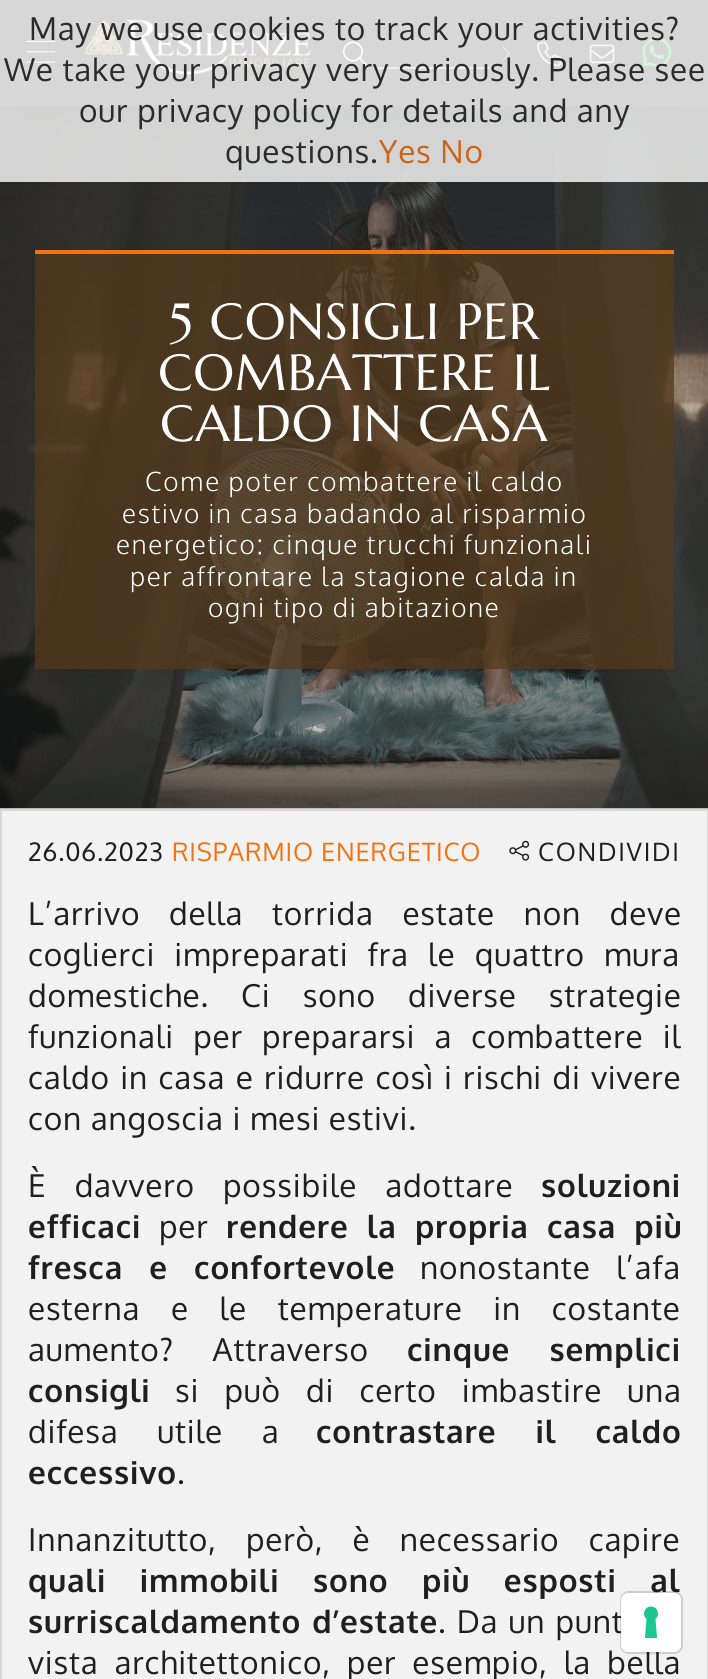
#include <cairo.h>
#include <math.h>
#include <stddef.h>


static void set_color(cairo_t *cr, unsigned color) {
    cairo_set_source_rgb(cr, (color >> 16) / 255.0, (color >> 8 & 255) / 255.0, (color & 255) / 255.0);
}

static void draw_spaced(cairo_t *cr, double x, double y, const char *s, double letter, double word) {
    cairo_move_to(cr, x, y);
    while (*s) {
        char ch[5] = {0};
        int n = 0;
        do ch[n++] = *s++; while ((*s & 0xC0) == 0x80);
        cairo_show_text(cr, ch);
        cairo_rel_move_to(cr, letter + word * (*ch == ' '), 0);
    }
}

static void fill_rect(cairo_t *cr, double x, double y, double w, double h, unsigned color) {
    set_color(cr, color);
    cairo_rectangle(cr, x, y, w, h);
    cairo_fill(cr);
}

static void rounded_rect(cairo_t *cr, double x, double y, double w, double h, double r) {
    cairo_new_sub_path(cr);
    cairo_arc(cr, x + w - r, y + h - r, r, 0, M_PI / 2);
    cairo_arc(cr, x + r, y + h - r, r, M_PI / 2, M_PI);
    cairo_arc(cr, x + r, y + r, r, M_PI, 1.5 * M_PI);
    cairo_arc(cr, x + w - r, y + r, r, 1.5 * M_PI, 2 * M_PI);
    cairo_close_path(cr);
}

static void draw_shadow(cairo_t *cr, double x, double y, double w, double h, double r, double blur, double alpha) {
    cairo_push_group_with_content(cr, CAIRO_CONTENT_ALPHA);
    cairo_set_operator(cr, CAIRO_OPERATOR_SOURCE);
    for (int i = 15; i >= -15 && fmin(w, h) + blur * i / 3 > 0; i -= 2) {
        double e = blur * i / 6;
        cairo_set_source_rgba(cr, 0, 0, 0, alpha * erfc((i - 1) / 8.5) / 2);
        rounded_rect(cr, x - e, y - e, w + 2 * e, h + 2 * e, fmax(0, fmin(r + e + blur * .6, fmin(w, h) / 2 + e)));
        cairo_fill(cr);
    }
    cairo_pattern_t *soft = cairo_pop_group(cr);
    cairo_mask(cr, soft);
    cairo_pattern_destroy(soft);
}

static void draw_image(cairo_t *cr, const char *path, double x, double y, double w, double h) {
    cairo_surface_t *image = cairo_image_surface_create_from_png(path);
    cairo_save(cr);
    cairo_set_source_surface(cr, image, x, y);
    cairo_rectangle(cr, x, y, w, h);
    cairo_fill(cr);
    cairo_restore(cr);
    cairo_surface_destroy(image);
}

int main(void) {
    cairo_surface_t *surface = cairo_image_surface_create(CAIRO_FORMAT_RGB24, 708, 1679);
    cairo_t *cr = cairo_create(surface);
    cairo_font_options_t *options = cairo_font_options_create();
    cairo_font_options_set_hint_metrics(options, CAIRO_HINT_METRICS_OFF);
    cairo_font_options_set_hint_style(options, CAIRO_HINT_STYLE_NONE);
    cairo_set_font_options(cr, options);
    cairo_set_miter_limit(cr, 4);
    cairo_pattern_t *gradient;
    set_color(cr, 0xFFFFFF);
    cairo_paint(cr);
    draw_image(cr, "assets/img8.png", 0, 109, 708, 700);
    gradient = cairo_pattern_create_linear(354, 108, 354, 809);
    cairo_pattern_add_color_stop_rgba(gradient, 0, 0.216, 0.216, 0.216, 0.5);
    cairo_pattern_add_color_stop_rgba(gradient, 0.5, 0.216, 0.216, 0.216, 0.2);
    cairo_pattern_add_color_stop_rgba(gradient, 1, 0.216, 0.216, 0.216, 0.2);
    cairo_set_source(cr, gradient);
    cairo_pattern_destroy(gradient);
    cairo_rectangle(cr, 0, 109, 708, 700);
    cairo_fill(cr);
    set_color(cr, 0x000000);
    draw_shadow(cr, 33, 51, 643, 42, 0, 17.5, 1);
    fill_rect(cr, 0, 0, 708, 107, 0x373737);
    fill_rect(cr, 0, 107, 708, 2, 0x2A2A2A);
    draw_image(cr, "assets/img1.png", 26, 40, 30, 23);
    draw_image(cr, "assets/img2.png", 84, 19, 228, 56);
    draw_image(cr, "assets/img3.png", 343, 41, 25, 25);
    draw_image(cr, "assets/img4.png", 502, 46, 8, 15);
    fill_rect(cr, 378, 67, 112, 2, 0xAFAFAF);
    draw_image(cr, "assets/img5.png", 537, 41, 25, 26);
    draw_image(cr, "assets/img6.png", 589, 44, 26, 19);
    draw_image(cr, "assets/img7.png", 642, 37, 30, 30);
    cairo_set_source_rgba(cr, 1, 1, 1, 0.8);
    cairo_rectangle(cr, 0, 0, 708, 182);
    cairo_fill(cr);
    cairo_select_font_face(cr, "Oxygen", CAIRO_FONT_SLANT_NORMAL, CAIRO_FONT_WEIGHT_NORMAL);
    cairo_set_font_size(cr, 31.5);
    set_color(cr, 0x2B2B2B);
    draw_spaced(cr, 29, 40, "May we use cookies to track your activities?", 0.85, 0);
    draw_spaced(cr, 4, 81, "We take your privacy very seriously. Please see", 0.85, 0);
    draw_spaced(cr, 79, 122, "our privacy policy for details and any", 0.85, 0);
    draw_spaced(cr, 225, 163, "questions.", 0.85, 0);
    set_color(cr, 0xCA6418);
    draw_spaced(cr, 379, 163, "Yes No", 0.85, 0);
    cairo_set_source_rgba(cr, 0.333, 0.224, 0.114, 0.75);
    cairo_rectangle(cr, 35, 254, 639, 415);
    cairo_fill(cr);
    fill_rect(cr, 35, 250, 639, 4, 0xF37313);
    cairo_select_font_face(cr, "Marcellus", CAIRO_FONT_SLANT_NORMAL, CAIRO_FONT_WEIGHT_NORMAL);
    cairo_set_font_size(cr, 50.75);
    set_color(cr, 0xFFFFFF);
    draw_spaced(cr, 169, 339, "5 CONSIGLI PER", 0.85, 0);
    draw_spaced(cr, 158, 390, "COMBATTERE IL", 0.85, 0);
    draw_spaced(cr, 160, 441, "CALDO IN CASA", 0.85, 0);
    cairo_select_font_face(cr, "Oxygen Light", CAIRO_FONT_SLANT_NORMAL, CAIRO_FONT_WEIGHT_NORMAL);
    cairo_set_font_size(cr, 26.25);
    draw_spaced(cr, 145, 491, "Come poter combattere il caldo", 1.75, 0);
    draw_spaced(cr, 122, 523, "estivo in casa badando al risparmio", 1.75, 0);
    draw_spaced(cr, 116, 554, "energetico: cinque trucchi funzionali", 1.75, 0);
    draw_spaced(cr, 130, 586, "per affrontare la stagione calda in", 1.75, 0);
    draw_spaced(cr, 208, 617, "ogni tipo di abitazione", 1.75, 0);
    draw_image(cr, "assets/img9.png", 0, 808, 708, 1);
    set_color(cr, 0xF2F2F2);
    cairo_rectangle(cr, 1, 810, 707, 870);
    cairo_fill_preserve(cr);
    set_color(cr, 0xD8D8D8);
    cairo_stroke(cr);
    cairo_select_font_face(cr, "Oxygen", CAIRO_FONT_SLANT_NORMAL, CAIRO_FONT_WEIGHT_NORMAL);
    cairo_set_font_size(cr, 25.25);
    set_color(cr, 0x1F1F1F);
    draw_spaced(cr, 28, 861, "26.06.2023", 0.85, 0);
    set_color(cr, 0xF37313);
    draw_spaced(cr, 172, 861, "RISPARMIO ENERGETICO", 0.85, 0);
    draw_image(cr, "assets/img10.png", 509, 840, 21, 21);
    set_color(cr, 0x1F1F1F);
    draw_spaced(cr, 538, 861, "CONDIVIDI", 1.75, 0);
    cairo_set_font_size(cr, 31.5);
    draw_spaced(cr, 28, 925, "L’arrivo della torrida estate non deve", 0.85, 20);
    draw_spaced(cr, 28, 966, "coglierci impreparati fra le quattro mura", 0.85, 10.5);
    draw_spaced(cr, 28, 1007, "domestiche. Ci sono diverse strategie", 0.85, 23.5);
    draw_spaced(cr, 28, 1048, "funzionali per prepararsi a combattere il", 0.85, 10.5);
    draw_spaced(cr, 28, 1089, "caldo in casa e ridurre così i rischi di vivere", 0.85, 1.75);
    draw_spaced(cr, 28, 1130, "con angoscia i mesi estivi.", 0.85, 0);
    draw_spaced(cr, 28, 1197, "È davvero possibile adottare", 0.85, 19.5);
    cairo_select_font_face(cr, "Oxygen", CAIRO_FONT_SLANT_NORMAL, CAIRO_FONT_WEIGHT_BOLD);
    draw_spaced(cr, 541, 1197, "soluzioni", 0.85, 0);
    draw_spaced(cr, 28, 1238, "efficaci", 0.85, 0);
    cairo_select_font_face(cr, "Oxygen", CAIRO_FONT_SLANT_NORMAL, CAIRO_FONT_WEIGHT_NORMAL);
    draw_spaced(cr, 159, 1238, "per", 0.85, 0);
    cairo_select_font_face(cr, "Oxygen", CAIRO_FONT_SLANT_NORMAL, CAIRO_FONT_WEIGHT_BOLD);
    draw_spaced(cr, 226, 1238, "rendere la propria casa più", 0.85, 9);
    draw_spaced(cr, 28, 1279, "fresca e confortevole", 0.85, 17);
    cairo_select_font_face(cr, "Oxygen", CAIRO_FONT_SLANT_NORMAL, CAIRO_FONT_WEIGHT_NORMAL);
    draw_spaced(cr, 420, 1279, "nonostante l’afa", 0.85, 17);
    draw_spaced(cr, 28, 1320, "esterna e le temperature in costante", 0.85, 22);
    draw_spaced(cr, 28, 1361, "aumento? Attraverso", 0.85, 30);
    cairo_select_font_face(cr, "Oxygen", CAIRO_FONT_SLANT_NORMAL, CAIRO_FONT_WEIGHT_BOLD);
    draw_spaced(cr, 407, 1361, "cinque semplici", 0.85, 30);
    draw_spaced(cr, 28, 1402, "consigli", 0.85, 0);
    cairo_select_font_face(cr, "Oxygen", CAIRO_FONT_SLANT_NORMAL, CAIRO_FONT_WEIGHT_NORMAL);
    draw_spaced(cr, 175, 1402, "si può di certo imbastire una", 0.85, 16.5);
    draw_spaced(cr, 28, 1443, "difesa utile a", 0.85, 30);
    cairo_select_font_face(cr, "Oxygen", CAIRO_FONT_SLANT_NORMAL, CAIRO_FONT_WEIGHT_BOLD);
    draw_spaced(cr, 316, 1443, "contrastare il caldo", 0.85, 30);
    draw_spaced(cr, 28, 1484, "eccessivo", 0.85, 0);
    cairo_select_font_face(cr, "Oxygen", CAIRO_FONT_SLANT_NORMAL, CAIRO_FONT_WEIGHT_NORMAL);
    draw_spaced(cr, 177, 1484, ".", 0.85, 0);
    draw_spaced(cr, 28, 1551, "Innanzitutto, però, è necessario capire", 0.85, 20.5);
    cairo_select_font_face(cr, "Oxygen", CAIRO_FONT_SLANT_NORMAL, CAIRO_FONT_WEIGHT_BOLD);
    draw_spaced(cr, 28, 1592, "quali immobili sono più esposti al", 0.85, 24.5);
    draw_spaced(cr, 28, 1633, "surriscaldamento d’estate", 0.85, 2);
    cairo_select_font_face(cr, "Oxygen", CAIRO_FONT_SLANT_NORMAL, CAIRO_FONT_WEIGHT_NORMAL);
    draw_spaced(cr, 438, 1633, ". Da un punt", 0.85, 1.5);
    draw_spaced(cr, 28, 1674, "vista architettonico, per esempio, la bella", 0.85, 7.25);
    rounded_rect(cr, 621, 1592, 61, 61, 8);
    cairo_set_source_rgba(cr, 0, 0, 0, 0.15);
    cairo_stroke(cr);
    set_color(cr, 0xFFFFFF);
    rounded_rect(cr, 621, 1593, 60, 59, 7);
    cairo_fill(cr);
    set_color(cr, 0x1CC691);
    cairo_set_fill_rule(cr, CAIRO_FILL_RULE_EVEN_ODD);
    cairo_new_path(cr);
    cairo_move_to(cr, 651, 1606.5);
    cairo_curve_to(cr, 657.5, 1606.5, 660.5, 1614.5, 655.5, 1619);
    cairo_line_to(cr, 657, 1638);
    cairo_line_to(cr, 645, 1638);
    cairo_line_to(cr, 646.5, 1619);
    cairo_curve_to(cr, 641.5, 1614.5, 644.5, 1606.5, 651, 1606.5);
    cairo_close_path(cr);
    cairo_fill(cr);
    cairo_surface_write_to_png(surface, "output.png");
    cairo_font_options_destroy(options);
    cairo_destroy(cr);
    cairo_surface_destroy(surface);
    return 0;
}
